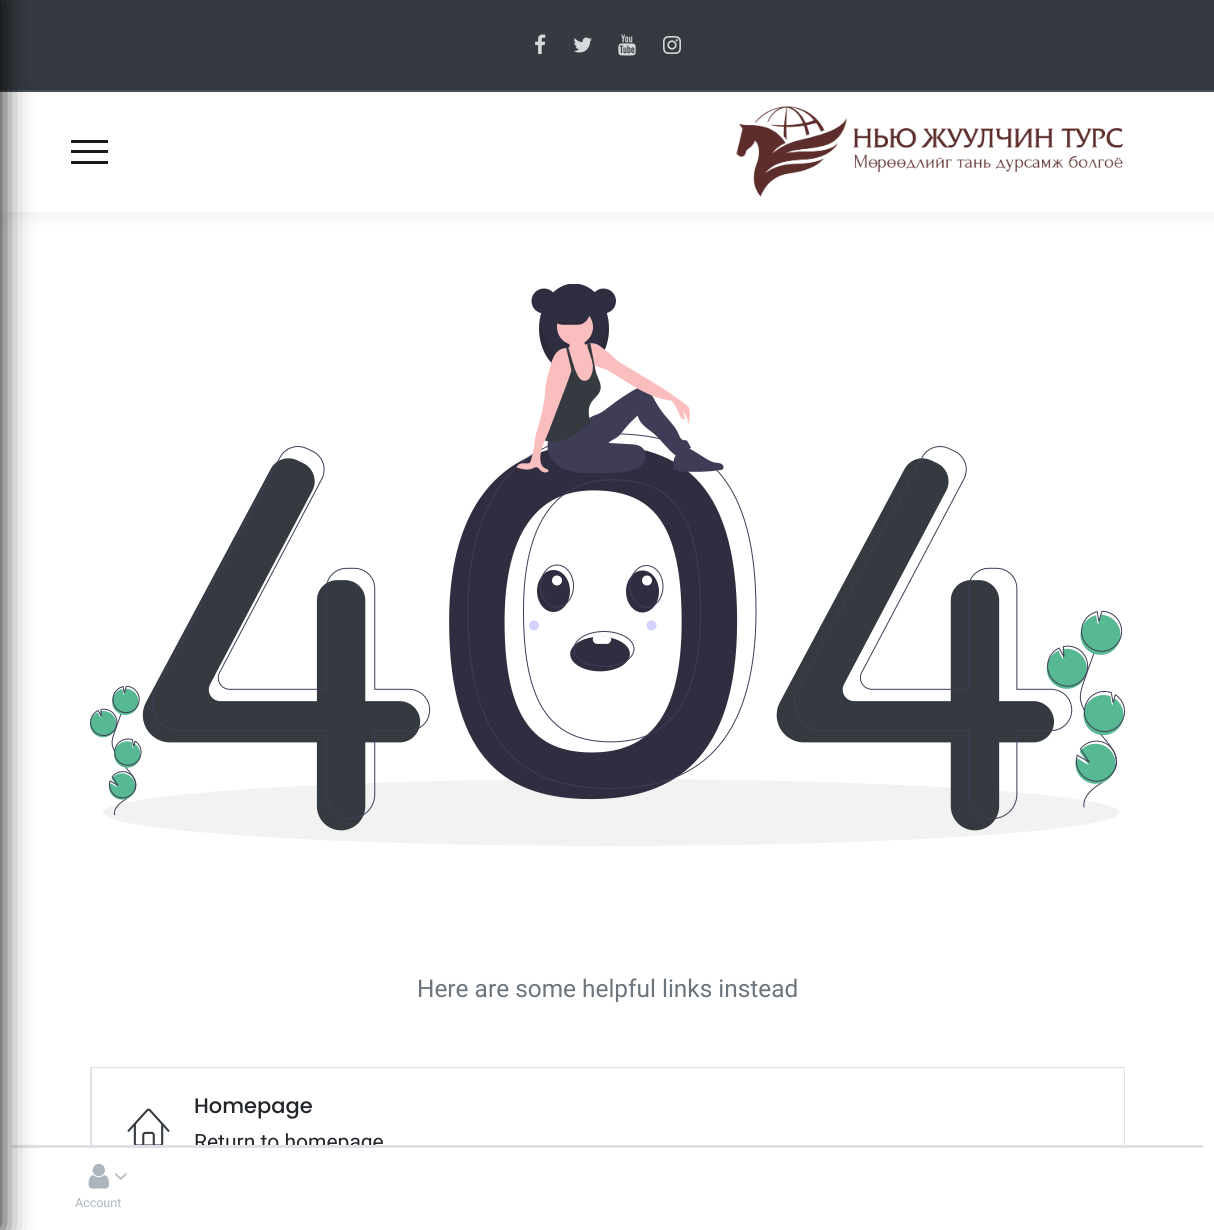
#include <cairo.h>
#include <math.h>
#include <stddef.h>


static void set_color(cairo_t *cr, unsigned color) {
    cairo_set_source_rgb(cr, (color >> 16) / 255.0, (color >> 8 & 255) / 255.0, (color & 255) / 255.0);
}

static void draw_text(cairo_t *cr, double x, double y, const char *s, const char *family, double size, int italic, int bold, unsigned color) {
    cairo_select_font_face(cr, family, italic ? CAIRO_FONT_SLANT_ITALIC : CAIRO_FONT_SLANT_NORMAL,
        bold ? CAIRO_FONT_WEIGHT_BOLD : CAIRO_FONT_WEIGHT_NORMAL);
    cairo_set_font_size(cr, size);
    set_color(cr, color);
    cairo_move_to(cr, x, y);
    cairo_show_text(cr, s);
}

static void fill_rect(cairo_t *cr, double x, double y, double w, double h, unsigned color) {
    set_color(cr, color);
    cairo_rectangle(cr, x, y, w, h);
    cairo_fill(cr);
}

static void rounded_rect(cairo_t *cr, double x, double y, double w, double h, double r) {
    cairo_new_sub_path(cr);
    cairo_arc(cr, x + w - r, y + h - r, r, 0, M_PI / 2);
    cairo_arc(cr, x + r, y + h - r, r, M_PI / 2, M_PI);
    cairo_arc(cr, x + r, y + r, r, M_PI, 1.5 * M_PI);
    cairo_arc(cr, x + w - r, y + r, r, 1.5 * M_PI, 2 * M_PI);
    cairo_close_path(cr);
}

static void draw_shadow(cairo_t *cr, double x, double y, double w, double h, double r, double blur, double alpha) {
    cairo_push_group_with_content(cr, CAIRO_CONTENT_ALPHA);
    cairo_set_operator(cr, CAIRO_OPERATOR_SOURCE);
    for (int i = 15; i >= -15 && fmin(w, h) + blur * i / 3 > 0; i -= 2) {
        double e = blur * i / 6;
        cairo_set_source_rgba(cr, 0, 0, 0, alpha * erfc((i - 1) / 8.5) / 2);
        rounded_rect(cr, x - e, y - e, w + 2 * e, h + 2 * e, fmax(0, fmin(r + e + blur * .6, fmin(w, h) / 2 + e)));
        cairo_fill(cr);
    }
    cairo_pattern_t *soft = cairo_pop_group(cr);
    cairo_mask(cr, soft);
    cairo_pattern_destroy(soft);
}

static void draw_image(cairo_t *cr, const char *path, double x, double y, double w, double h) {
    cairo_surface_t *image = cairo_image_surface_create_from_png(path);
    cairo_save(cr);
    cairo_set_source_surface(cr, image, x, y);
    cairo_rectangle(cr, x, y, w, h);
    cairo_fill(cr);
    cairo_restore(cr);
    cairo_surface_destroy(image);
}

int main(void) {
    cairo_surface_t *surface = cairo_image_surface_create(CAIRO_FORMAT_RGB24, 1214, 1230);
    cairo_t *cr = cairo_create(surface);
    cairo_font_options_t *options = cairo_font_options_create();
    cairo_font_options_set_hint_metrics(options, CAIRO_HINT_METRICS_OFF);
    cairo_font_options_set_hint_style(options, CAIRO_HINT_STYLE_NONE);
    cairo_set_font_options(cr, options);
    cairo_set_miter_limit(cr, 4);
    set_color(cr, 0xFFFFFF);
    cairo_paint(cr);
    fill_rect(cr, 0, 0, 1214, 90, 0x343A40);
    fill_rect(cr, 0, 90, 1214, 2, 0x4C5257);
    cairo_rectangle(cr, 91, 1068, 1033, 113);
    set_color(cr, 0xDEE2E6);
    cairo_stroke(cr);
    cairo_set_source_rgba(cr, 1, 1, 1, 0.9);
    cairo_rectangle(cr, 92, 1068, 1032, 77);
    cairo_fill(cr);
    draw_text(cr, 194, 1149, "Return to homepage", "Roboto", 21, 0, 0, 0x212529);
    set_color(cr, 0xFFFFFF);
    cairo_new_path(cr);
    cairo_move_to(cr, 24, 1145);
    cairo_line_to(cr, 1191, 1145);
    cairo_curve_to(cr, 1204.5, 1145, 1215, 1155.5, 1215, 1169);
    cairo_line_to(cr, 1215, 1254);
    cairo_line_to(cr, 0, 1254);
    cairo_line_to(cr, 0, 1169);
    cairo_curve_to(cr, 0, 1155.5, 10.5, 1145, 24, 1145);
    cairo_close_path(cr);
    cairo_fill(cr);
    fill_rect(cr, 12, 1145, 1191, 3, 0xDEE2E6);
    set_color(cr, 0x000000);
    draw_shadow(cr, -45, 0, 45, 1230, 0, 15, 1);
    draw_image(cr, "assets/img1.png", 535, 34, 11, 20);
    draw_image(cr, "assets/img2.png", 573, 37, 19, 16);
    draw_image(cr, "assets/img3.png", 618, 34, 18, 22);
    draw_image(cr, "assets/img4.png", 663, 36, 18, 18);
    cairo_save(cr);
    cairo_set_fill_rule(cr, CAIRO_FILL_RULE_EVEN_ODD);
    cairo_new_path(cr);
    cairo_move_to(cr, 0, 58);
    cairo_line_to(cr, 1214, 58);
    cairo_line_to(cr, 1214, 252);
    cairo_line_to(cr, 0, 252);
    cairo_close_path(cr);
    cairo_move_to(cr, 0, 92);
    cairo_line_to(cr, 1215, 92);
    cairo_line_to(cr, 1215, 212);
    cairo_line_to(cr, 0, 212);
    cairo_close_path(cr);
    cairo_clip(cr);
    draw_shadow(cr, 0, 95, 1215, 120, 0, 12, 0.07);
    cairo_restore(cr);
    fill_rect(cr, 71, 140, 37, 3, 0x191A1A);
    fill_rect(cr, 71, 150, 37, 3, 0x191A1A);
    fill_rect(cr, 71, 161, 37, 3, 0x191A1A);
    draw_image(cr, "assets/img5.png", 736, 106, 388, 91);
    draw_image(cr, "assets/img6.png", 90, 284, 1035, 562);
    draw_text(cr, 417, 997, "Here are some helpful links instead", "Roboto", 24.4, 0, 0, 0x6C757D);
    draw_image(cr, "assets/img7.png", 127, 1108, 43, 37);
    draw_text(cr, 194, 1113, "Homepage", "Poppins Medium", 21, 0, 0, 0x212529);
    draw_image(cr, "assets/img8.png", 88, 1163, 21, 26);
    draw_image(cr, "assets/img9.png", 115, 1173, 12, 7);
    draw_text(cr, 75, 1207, "Account", "Roboto", 12.5, 0, 0, 0xADB5BD);
    cairo_surface_write_to_png(surface, "output.png");
    cairo_font_options_destroy(options);
    cairo_destroy(cr);
    cairo_surface_destroy(surface);
    return 0;
}
